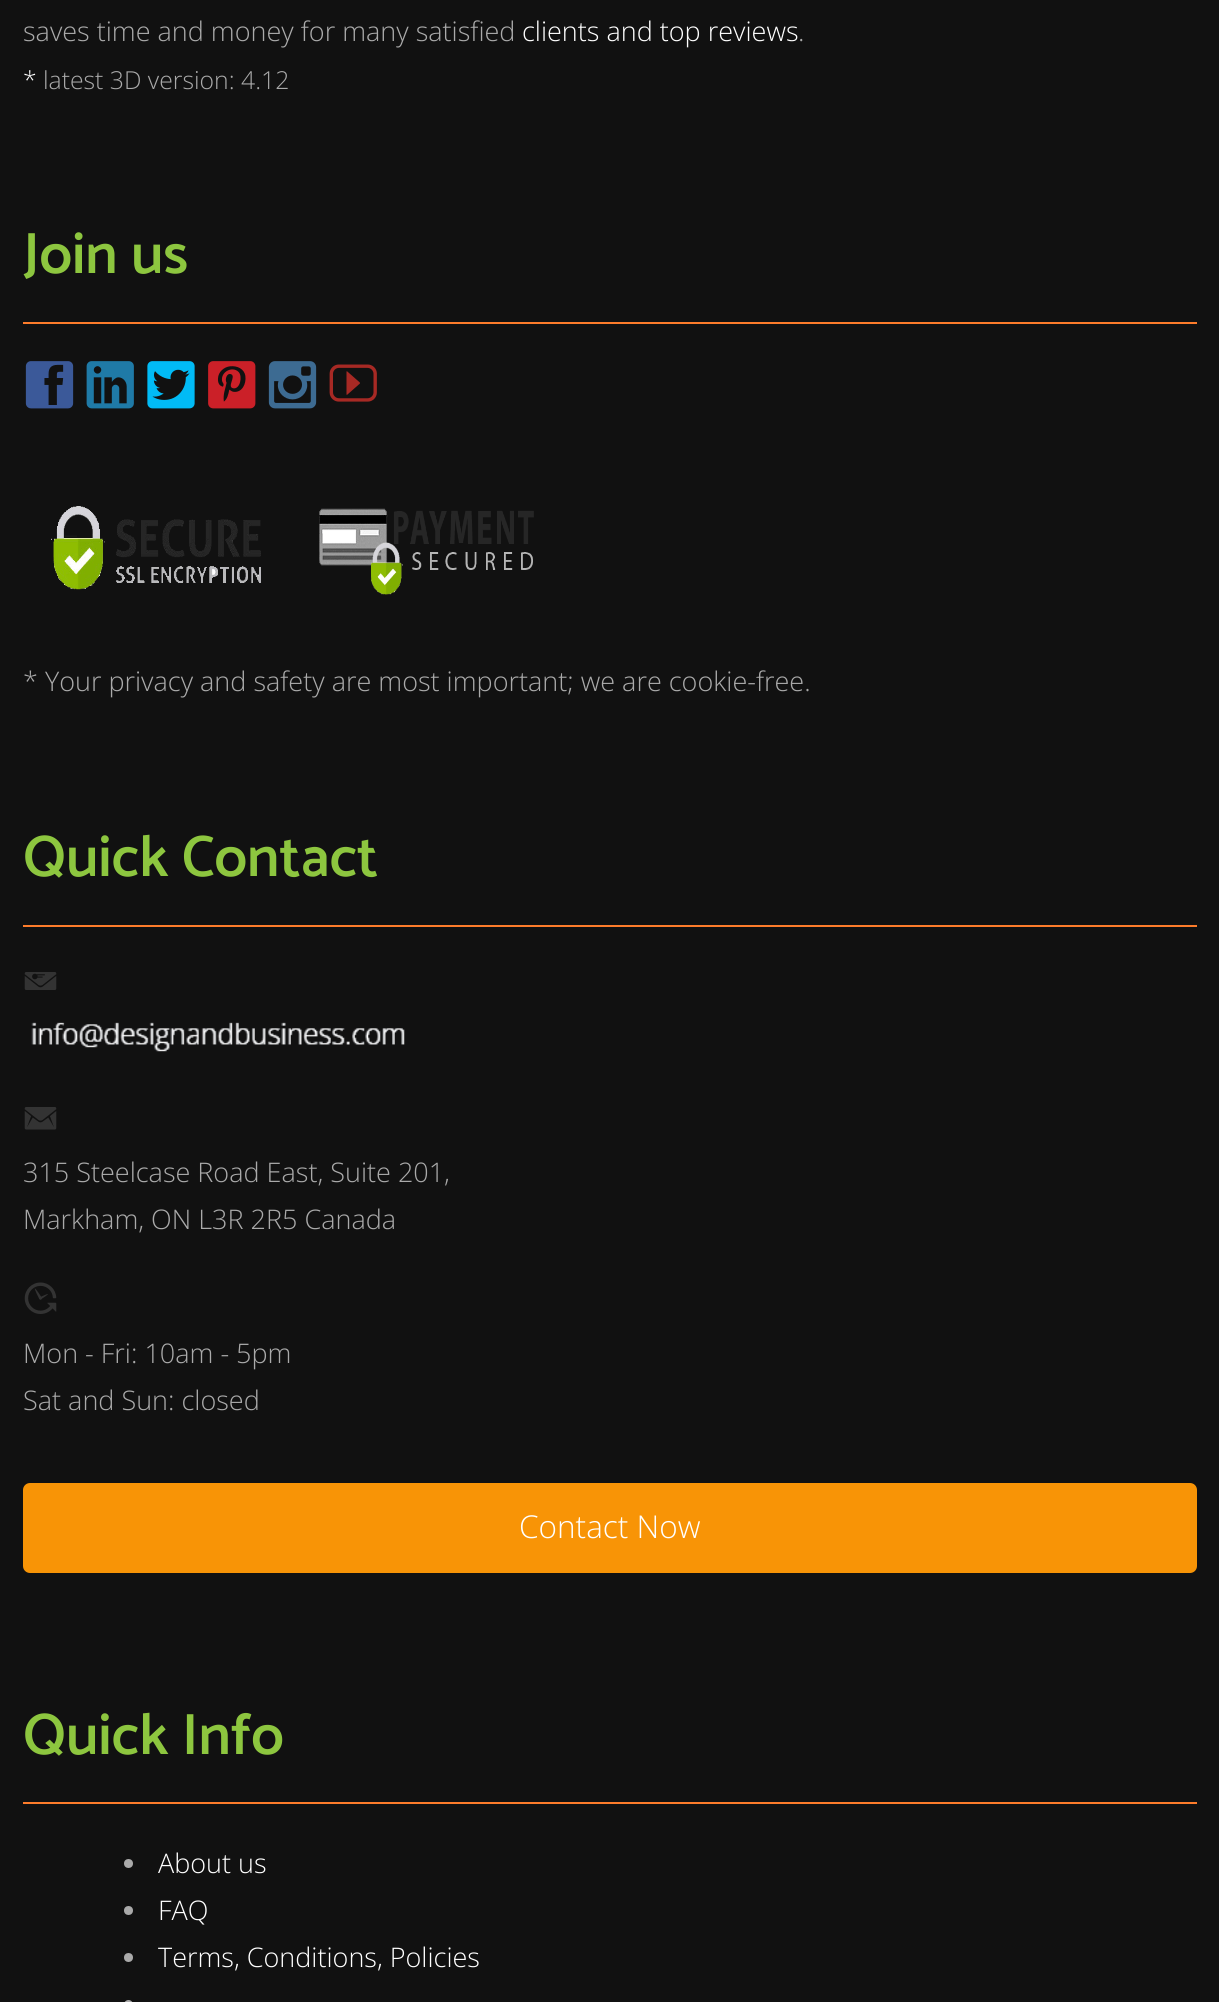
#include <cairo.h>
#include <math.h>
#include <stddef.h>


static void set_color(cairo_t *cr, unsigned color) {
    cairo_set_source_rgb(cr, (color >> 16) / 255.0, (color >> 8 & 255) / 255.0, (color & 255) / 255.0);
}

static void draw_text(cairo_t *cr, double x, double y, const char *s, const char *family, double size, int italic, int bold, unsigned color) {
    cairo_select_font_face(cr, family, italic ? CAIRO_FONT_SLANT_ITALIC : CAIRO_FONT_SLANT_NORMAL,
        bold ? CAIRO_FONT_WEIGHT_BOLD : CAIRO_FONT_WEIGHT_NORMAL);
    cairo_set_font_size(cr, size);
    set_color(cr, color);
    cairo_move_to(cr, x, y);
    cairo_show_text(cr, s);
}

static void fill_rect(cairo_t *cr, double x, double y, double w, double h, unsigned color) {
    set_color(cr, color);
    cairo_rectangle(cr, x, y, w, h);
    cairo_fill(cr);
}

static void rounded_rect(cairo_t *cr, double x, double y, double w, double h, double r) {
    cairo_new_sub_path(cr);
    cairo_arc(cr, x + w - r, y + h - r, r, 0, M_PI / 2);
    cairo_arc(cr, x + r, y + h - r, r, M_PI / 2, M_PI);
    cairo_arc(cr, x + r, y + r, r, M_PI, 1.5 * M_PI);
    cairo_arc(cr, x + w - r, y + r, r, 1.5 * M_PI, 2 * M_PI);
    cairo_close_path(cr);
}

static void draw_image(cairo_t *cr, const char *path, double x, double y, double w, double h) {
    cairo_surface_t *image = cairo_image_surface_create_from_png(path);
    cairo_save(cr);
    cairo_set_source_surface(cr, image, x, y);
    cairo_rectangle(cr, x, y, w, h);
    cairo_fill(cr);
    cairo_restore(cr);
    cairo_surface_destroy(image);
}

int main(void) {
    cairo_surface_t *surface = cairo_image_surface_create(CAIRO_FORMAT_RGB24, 1219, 2002);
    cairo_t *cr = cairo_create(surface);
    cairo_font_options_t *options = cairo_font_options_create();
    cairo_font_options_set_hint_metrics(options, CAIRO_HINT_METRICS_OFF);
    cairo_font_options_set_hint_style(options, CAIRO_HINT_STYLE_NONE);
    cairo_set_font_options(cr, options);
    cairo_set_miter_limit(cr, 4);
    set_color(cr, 0x111111);
    cairo_paint(cr);
    draw_text(cr, 23, 41, "saves time and money for many satisfied", "Open Sans Light", 27, 0, 0, 0xAAAAAA);
    draw_text(cr, 522, 41, "clients and top reviews", "Open Sans Light", 27, 0, 0, 0xFFFFFF);
    draw_text(cr, 798, 41, ".", "Open Sans Light", 27, 0, 0, 0xAAAAAA);
    draw_text(cr, 23, 89, "*", "Open Sans Light", 24.75, 0, 0, 0xFFFFFF);
    draw_text(cr, 43, 89, "latest 3D version: 4.12", "Open Sans Light", 24.75, 0, 0, 0xAAAAAA);
    fill_rect(cr, 23, 322, 1174, 2, 0xFD7C2B);
    draw_text(cr, 23, 273, "Join us", "Catamaran Thin", 58.5, 0, 0, 0x8DC63F);
    draw_image(cr, "assets/img1.png", 25, 361, 49, 48);
    draw_image(cr, "assets/img2.png", 86, 361, 48, 48);
    draw_image(cr, "assets/img3.png", 147, 361, 48, 48);
    draw_image(cr, "assets/img4.png", 208, 361, 48, 48);
    draw_image(cr, "assets/img5.png", 268, 361, 49, 48);
    draw_image(cr, "assets/img6.png", 329, 364, 48, 38);
    draw_image(cr, "assets/img7.png", 51, 506, 210, 84);
    draw_image(cr, "assets/img8.png", 319, 508, 215, 87);
    draw_text(cr, 23, 691, "* Your privacy and safety are most important; we are cookie-free.", "Open Sans Light", 27, 0, 0, 0xAAAAAA);
    fill_rect(cr, 23, 925, 1174, 2, 0xFD7C2B);
    draw_text(cr, 23, 876, "Quick Contact", "Catamaran Thin", 58.5, 0, 0, 0x8DC63F);
    draw_image(cr, "assets/img9.png", 24, 972, 33, 18);
    draw_image(cr, "assets/img10.png", 31, 1022, 374, 30);
    draw_image(cr, "assets/img11.png", 24, 1107, 33, 23);
    draw_text(cr, 23, 1182, "315 Steelcase Road East, Suite 201,", "Open Sans Light", 27, 0, 0, 0xAAAAAA);
    draw_text(cr, 23, 1229, "Markham, ON L3R 2R5 Canada", "Open Sans Light", 27, 0, 0, 0xAAAAAA);
    draw_image(cr, "assets/img12.png", 24, 1282, 33, 32);
    draw_text(cr, 23, 1363, "Mon - Fri: 10am - 5pm", "Open Sans Light", 27, 0, 0, 0xAAAAAA);
    draw_text(cr, 23, 1410, "Sat and Sun: closed", "Open Sans Light", 27, 0, 0, 0xAAAAAA);
    set_color(cr, 0xF89406);
    rounded_rect(cr, 23, 1483, 1174, 90, 7);
    cairo_fill(cr);
    draw_text(cr, 519, 1538, "Contact Now", "Open Sans Light", 31.5, 0, 0, 0xFFFFFF);
    fill_rect(cr, 23, 1802, 1174, 2, 0xFD7C2B);
    draw_text(cr, 23, 1754, "Quick Info", "Catamaran Thin", 58.5, 0, 0, 0x8DC63F);
    set_color(cr, 0xAAAAAA);
    cairo_new_path(cr);
    cairo_arc(cr, 128.5, 1863.5, 4.5, 0, 2 * M_PI);
    cairo_fill(cr);
    draw_text(cr, 158, 1873, "About us", "Open Sans Light", 27, 0, 0, 0xFFFFFF);
    set_color(cr, 0xAAAAAA);
    cairo_new_path(cr);
    cairo_arc(cr, 128.5, 1910.5, 4.5, 0, 2 * M_PI);
    cairo_fill(cr);
    draw_text(cr, 158, 1920, "FAQ", "Open Sans Light", 27, 0, 0, 0xFFFFFF);
    set_color(cr, 0xAAAAAA);
    cairo_new_path(cr);
    cairo_arc(cr, 128.5, 1957.5, 4.5, 0, 2 * M_PI);
    cairo_fill(cr);
    draw_text(cr, 158, 1967, "Terms, Conditions, Policies", "Open Sans Light", 27, 0, 0, 0xFFFFFF);
    set_color(cr, 0xAAAAAA);
    rounded_rect(cr, 124, 2000, 9, 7, 4.5);
    cairo_fill(cr);
    cairo_surface_write_to_png(surface, "output.png");
    cairo_font_options_destroy(options);
    cairo_destroy(cr);
    cairo_surface_destroy(surface);
    return 0;
}
